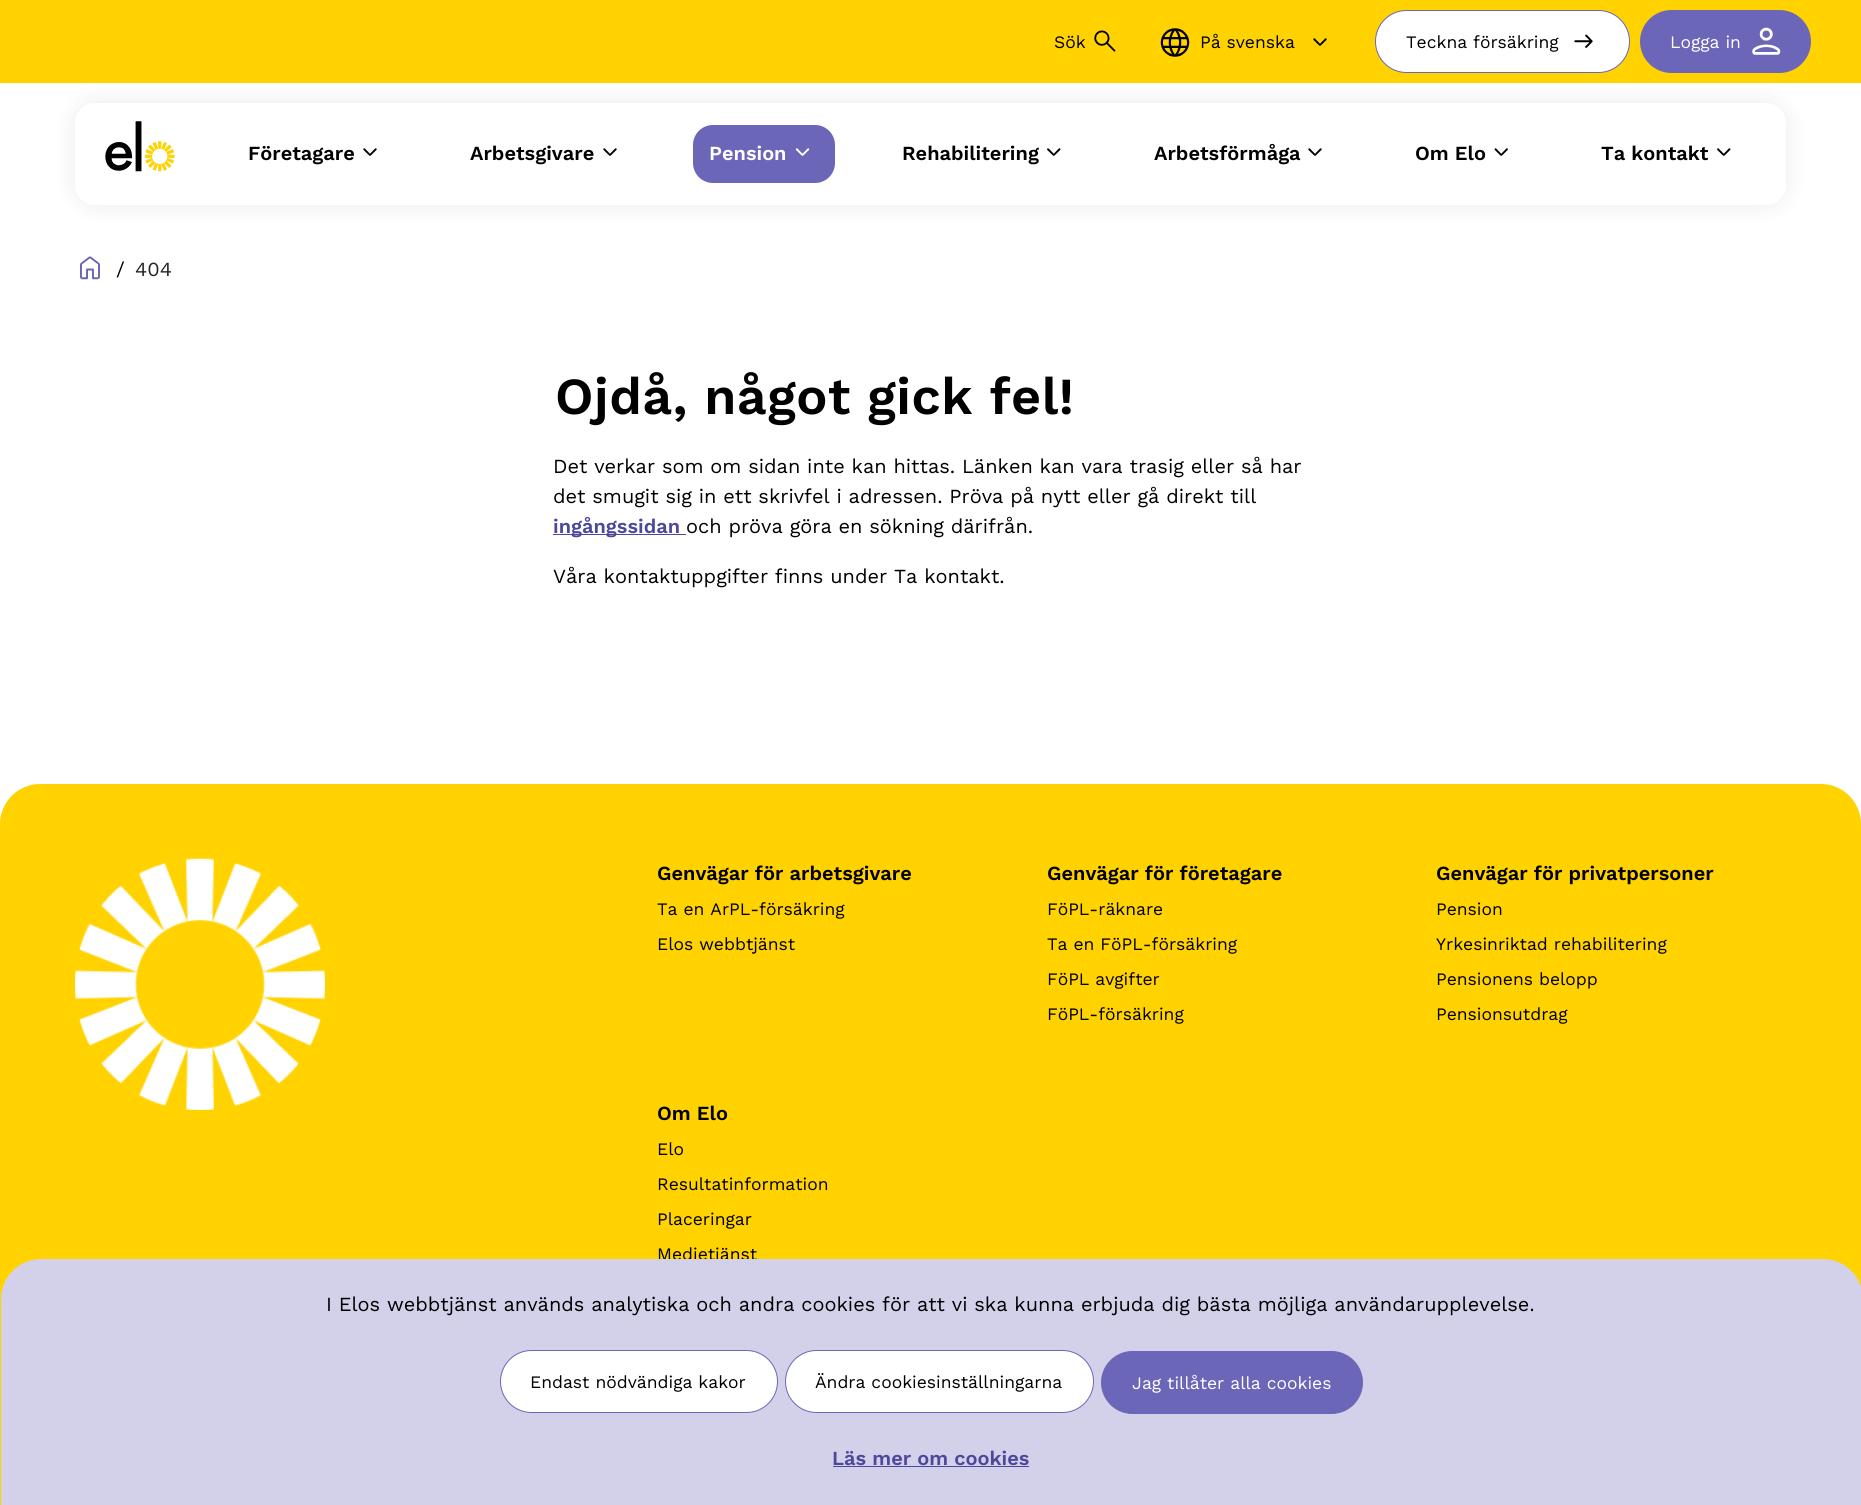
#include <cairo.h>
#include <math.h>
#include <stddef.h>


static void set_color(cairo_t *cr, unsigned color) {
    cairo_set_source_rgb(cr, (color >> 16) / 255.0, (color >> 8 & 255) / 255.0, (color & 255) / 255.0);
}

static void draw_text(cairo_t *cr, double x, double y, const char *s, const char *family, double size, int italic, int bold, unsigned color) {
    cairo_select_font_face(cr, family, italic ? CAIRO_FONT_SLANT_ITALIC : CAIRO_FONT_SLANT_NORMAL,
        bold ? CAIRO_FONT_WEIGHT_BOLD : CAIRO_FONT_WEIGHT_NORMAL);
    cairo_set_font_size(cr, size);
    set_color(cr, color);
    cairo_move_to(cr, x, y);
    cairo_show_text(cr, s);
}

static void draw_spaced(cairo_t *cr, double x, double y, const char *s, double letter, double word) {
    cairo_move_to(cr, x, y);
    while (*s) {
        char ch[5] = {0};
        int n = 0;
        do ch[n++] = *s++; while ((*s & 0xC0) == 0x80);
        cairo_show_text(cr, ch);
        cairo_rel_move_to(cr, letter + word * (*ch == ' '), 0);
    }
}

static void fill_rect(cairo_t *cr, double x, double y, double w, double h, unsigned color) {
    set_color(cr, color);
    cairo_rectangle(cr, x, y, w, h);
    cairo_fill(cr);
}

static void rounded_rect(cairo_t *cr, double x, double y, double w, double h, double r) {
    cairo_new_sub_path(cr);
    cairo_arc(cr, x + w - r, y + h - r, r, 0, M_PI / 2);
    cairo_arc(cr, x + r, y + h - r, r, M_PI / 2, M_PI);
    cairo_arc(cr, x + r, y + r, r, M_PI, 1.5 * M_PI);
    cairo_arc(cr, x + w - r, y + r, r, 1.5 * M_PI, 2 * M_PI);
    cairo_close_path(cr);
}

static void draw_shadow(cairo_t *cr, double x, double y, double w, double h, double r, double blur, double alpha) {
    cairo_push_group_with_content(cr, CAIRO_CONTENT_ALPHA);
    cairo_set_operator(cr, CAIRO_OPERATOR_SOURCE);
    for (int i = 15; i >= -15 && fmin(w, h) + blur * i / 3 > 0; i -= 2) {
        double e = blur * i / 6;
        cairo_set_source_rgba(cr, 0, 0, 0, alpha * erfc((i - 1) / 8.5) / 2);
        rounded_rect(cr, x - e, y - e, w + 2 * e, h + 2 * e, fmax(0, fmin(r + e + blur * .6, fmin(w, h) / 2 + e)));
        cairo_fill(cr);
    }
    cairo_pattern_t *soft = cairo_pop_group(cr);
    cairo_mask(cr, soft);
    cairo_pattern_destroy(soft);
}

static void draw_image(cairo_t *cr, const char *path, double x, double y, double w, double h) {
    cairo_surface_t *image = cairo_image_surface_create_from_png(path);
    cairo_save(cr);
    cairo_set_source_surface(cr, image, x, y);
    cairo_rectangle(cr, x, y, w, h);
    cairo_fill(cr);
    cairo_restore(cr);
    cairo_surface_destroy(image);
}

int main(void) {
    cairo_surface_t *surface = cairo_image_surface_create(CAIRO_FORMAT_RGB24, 1861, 1505);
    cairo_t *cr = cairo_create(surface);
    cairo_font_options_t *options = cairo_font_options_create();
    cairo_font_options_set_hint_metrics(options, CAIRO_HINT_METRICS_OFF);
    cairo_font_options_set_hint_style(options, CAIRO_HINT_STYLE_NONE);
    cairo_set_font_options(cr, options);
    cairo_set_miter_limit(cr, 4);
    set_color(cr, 0xFFFFFF);
    cairo_paint(cr);
    fill_rect(cr, 0, 0, 1861, 83, 0xFFD200);
    draw_text(cr, 1054, 48, "Sök", "Work Sans", 17.5, 0, 0, 0x000000);
    draw_image(cr, "assets/img1.png", 1094, 30, 22, 22);
    draw_image(cr, "assets/img2.png", 1160, 28, 30, 29);
    draw_text(cr, 1200, 48, "På svenska", "Work Sans", 17.5, 0, 0, 0x000000);
    draw_image(cr, "assets/img3.png", 1313, 38, 14, 8);
    set_color(cr, 0xFFFFFF);
    rounded_rect(cr, 1375.5, 10.5, 254, 62, 31);
    cairo_fill_preserve(cr);
    set_color(cr, 0x6C66B9);
    cairo_set_line_width(cr, 1);
    cairo_stroke(cr);
    draw_text(cr, 1406, 48, "Teckna försäkring", "Work Sans", 17.5, 0, 0, 0x000000);
    draw_image(cr, "assets/img4.png", 1574, 34, 19, 14);
    set_color(cr, 0x6C66B9);
    rounded_rect(cr, 1640, 10, 171, 63, 31.5);
    cairo_fill(cr);
    draw_text(cr, 1670, 48, "Logga in", "Work Sans", 17.5, 0, 0, 0xFFFFFF);
    draw_image(cr, "assets/img5.png", 1752, 27, 29, 28);
    set_color(cr, 0x000000);
    draw_shadow(cr, 75, 103, 1711, 102, 20, 12.5, 0.08);
    set_color(cr, 0xFFFFFF);
    rounded_rect(cr, 75, 103, 1711, 102, 20);
    cairo_fill(cr);
    draw_image(cr, "assets/img6.png", 105, 121, 70, 51);
    draw_text(cr, 248, 160, "Företagare", "Work Sans SemiBold", 20, 0, 0, 0x000000);
    draw_image(cr, "assets/img7.png", 363, 148, 14, 8);
    draw_text(cr, 470, 160, "Arbetsgivare", "Work Sans SemiBold", 20, 0, 0, 0x000000);
    draw_image(cr, "assets/img7.png", 603, 148, 14, 8);
    set_color(cr, 0x6C66B9);
    rounded_rect(cr, 694.5, 126.5, 139, 55, 18.5);
    cairo_fill_preserve(cr);
    cairo_set_line_width(cr, 3);
    cairo_stroke(cr);
    draw_text(cr, 709, 160, "Pension", "Work Sans SemiBold", 20, 0, 0, 0xFFFFFF);
    draw_image(cr, "assets/img8.png", 795, 148, 15, 8);
    draw_text(cr, 902, 160, "Rehabilitering", "Work Sans SemiBold", 20, 0, 0, 0x000000);
    draw_image(cr, "assets/img9.png", 1047, 148, 14, 8);
    draw_text(cr, 1154, 160, "Arbetsförmåga", "Work Sans SemiBold", 20, 0, 0, 0x000000);
    draw_image(cr, "assets/img7.png", 1308, 148, 14, 8);
    draw_text(cr, 1415, 160, "Om Elo", "Work Sans SemiBold", 20, 0, 0, 0x000000);
    draw_image(cr, "assets/img10.png", 1494, 148, 14, 8);
    draw_text(cr, 1601, 160, "Ta kontakt", "Work Sans SemiBold", 20, 0, 0, 0x000000);
    draw_image(cr, "assets/img9.png", 1717, 148, 14, 8);
    draw_image(cr, "assets/img11.png", 80, 256, 20, 24);
    draw_text(cr, 116, 276, "/", "Work Sans", 20, 0, 0, 0x000000);
    draw_text(cr, 135, 276, "404", "Work Sans", 20, 0, 0, 0x212529);
    cairo_select_font_face(cr, "Work Sans SemiBold", CAIRO_FONT_SLANT_NORMAL, CAIRO_FONT_WEIGHT_NORMAL);
    cairo_set_font_size(cr, 52);
    set_color(cr, 0x000000);
    draw_spaced(cr, 555, 414, "Ojdå, något gick fel!", 0.5, 0);
    draw_text(cr, 553, 473, "Det verkar som om sidan inte kan hittas. Länken kan vara trasig eller så har", "Work Sans", 20, 0, 0, 0x000000);
    draw_text(cr, 553, 503, "det smugit sig in ett skrivfel i adressen. Pröva på nytt eller gå direkt till", "Work Sans", 20, 0, 0, 0x000000);
    fill_rect(cr, 553, 534, 133, 1, 0x4E489D);
    draw_text(cr, 553, 533, "ingångssidan", "Work Sans SemiBold", 20, 0, 0, 0x4E489D);
    draw_text(cr, 686, 533, "och pröva göra en sökning därifrån.", "Work Sans", 20, 0, 0, 0x000000);
    draw_text(cr, 553, 583, "Våra kontaktuppgifter finns under Ta kontakt.", "Work Sans", 20, 0, 0, 0x000000);
    set_color(cr, 0xFFD200);
    cairo_new_path(cr);
    cairo_move_to(cr, 40, 784);
    cairo_line_to(cr, 1821, 784);
    cairo_curve_to(cr, 1843, 784, 1861, 802, 1861, 824);
    cairo_line_to(cr, 1861, 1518);
    cairo_line_to(cr, 0, 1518);
    cairo_line_to(cr, 0, 824);
    cairo_curve_to(cr, 0, 802, 18, 784, 40, 784);
    cairo_close_path(cr);
    cairo_fill(cr);
    draw_image(cr, "assets/img12.png", 75, 858, 250, 252);
    draw_text(cr, 657, 880, "Genvägar för arbetsgivare", "Work Sans SemiBold", 20, 0, 0, 0x000000);
    draw_text(cr, 657, 915, "Ta en ArPL-försäkring", "Work Sans", 17.5, 0, 0, 0x000000);
    draw_text(cr, 657, 950, "Elos webbtjänst", "Work Sans", 17.5, 0, 0, 0x000000);
    draw_text(cr, 1047, 880, "Genvägar för företagare", "Work Sans SemiBold", 20, 0, 0, 0x000000);
    draw_text(cr, 1047, 915, "FöPL-räknare", "Work Sans", 17.5, 0, 0, 0x000000);
    draw_text(cr, 1047, 950, "Ta en FöPL-försäkring", "Work Sans", 17.5, 0, 0, 0x000000);
    draw_text(cr, 1047, 985, "FöPL avgifter", "Work Sans", 17.5, 0, 0, 0x000000);
    draw_text(cr, 1047, 1020, "FöPL-försäkring", "Work Sans", 17.5, 0, 0, 0x000000);
    draw_text(cr, 1436, 880, "Genvägar för privatpersoner", "Work Sans SemiBold", 20, 0, 0, 0x000000);
    draw_text(cr, 1436, 915, "Pension", "Work Sans", 17.5, 0, 0, 0x000000);
    draw_text(cr, 1436, 950, "Yrkesinriktad rehabilitering", "Work Sans", 17.5, 0, 0, 0x000000);
    draw_text(cr, 1436, 985, "Pensionens belopp", "Work Sans", 17.5, 0, 0, 0x000000);
    draw_text(cr, 1436, 1020, "Pensionsutdrag", "Work Sans", 17.5, 0, 0, 0x000000);
    draw_text(cr, 657, 1120, "Om Elo", "Work Sans SemiBold", 20, 0, 0, 0x000000);
    draw_text(cr, 657, 1155, "Elo", "Work Sans", 17.5, 0, 0, 0x000000);
    draw_text(cr, 657, 1190, "Resultatinformation", "Work Sans", 17.5, 0, 0, 0x000000);
    draw_text(cr, 657, 1225, "Placeringar", "Work Sans", 17.5, 0, 0, 0x000000);
    draw_text(cr, 657, 1260, "Medietjänst", "Work Sans", 17.5, 0, 0, 0x000000);
    set_color(cr, 0xD3D1EA);
    cairo_new_path(cr);
    cairo_move_to(cr, 41, 1259);
    cairo_line_to(cr, 1823, 1259);
    cairo_curve_to(cr, 1845, 1259, 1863, 1277, 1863, 1299);
    cairo_line_to(cr, 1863, 1505);
    cairo_line_to(cr, 1, 1505);
    cairo_line_to(cr, 1, 1299);
    cairo_curve_to(cr, 1, 1277, 19, 1259, 41, 1259);
    cairo_close_path(cr);
    cairo_fill(cr);
    draw_text(cr, 326, 1311, "I Elos webbtjänst används analytiska och andra cookies för att vi ska kunna erbjuda dig bästa möjliga användarupplevelse.", "Work Sans", 20, 0, 0, 0x000000);
    set_color(cr, 0xFFFFFF);
    rounded_rect(cr, 500.5, 1350.5, 277, 62, 31);
    cairo_fill_preserve(cr);
    set_color(cr, 0x6C66B9);
    cairo_set_line_width(cr, 1);
    cairo_stroke(cr);
    draw_text(cr, 530, 1388, "Endast nödvändiga kakor", "Work Sans", 17.5, 0, 0, 0x000000);
    set_color(cr, 0xFFFFFF);
    rounded_rect(cr, 785.5, 1350.5, 308, 62, 31);
    cairo_fill_preserve(cr);
    set_color(cr, 0x6C66B9);
    cairo_stroke(cr);
    draw_text(cr, 815, 1388, "Ändra cookiesinställningarna", "Work Sans", 17.5, 0, 0, 0x000000);
    set_color(cr, 0x6C66B9);
    rounded_rect(cr, 1101.5, 1351.5, 261, 62, 31);
    cairo_fill_preserve(cr);
    cairo_stroke(cr);
    draw_text(cr, 1132, 1389, "Jag tillåter alla cookies", "Work Sans", 17.5, 0, 0, 0xFFFFFF);
    draw_text(cr, 832, 1465, "Läs mer om cookies", "Work Sans SemiBold", 20, 0, 0, 0x4E489D);
    fill_rect(cr, 833, 1466, 196, 1, 0x4E489D);
    cairo_surface_write_to_png(surface, "output.png");
    cairo_font_options_destroy(options);
    cairo_destroy(cr);
    cairo_surface_destroy(surface);
    return 0;
}
